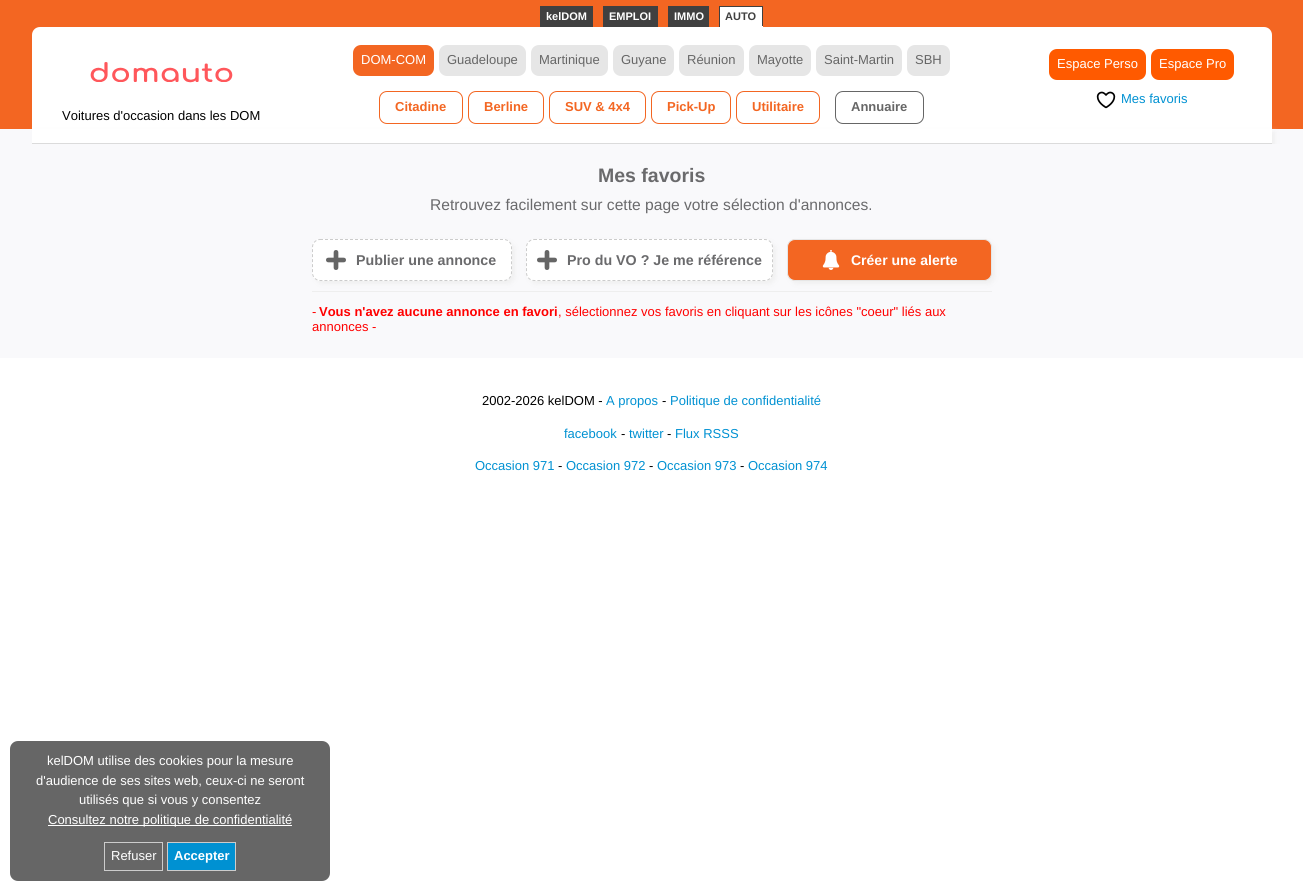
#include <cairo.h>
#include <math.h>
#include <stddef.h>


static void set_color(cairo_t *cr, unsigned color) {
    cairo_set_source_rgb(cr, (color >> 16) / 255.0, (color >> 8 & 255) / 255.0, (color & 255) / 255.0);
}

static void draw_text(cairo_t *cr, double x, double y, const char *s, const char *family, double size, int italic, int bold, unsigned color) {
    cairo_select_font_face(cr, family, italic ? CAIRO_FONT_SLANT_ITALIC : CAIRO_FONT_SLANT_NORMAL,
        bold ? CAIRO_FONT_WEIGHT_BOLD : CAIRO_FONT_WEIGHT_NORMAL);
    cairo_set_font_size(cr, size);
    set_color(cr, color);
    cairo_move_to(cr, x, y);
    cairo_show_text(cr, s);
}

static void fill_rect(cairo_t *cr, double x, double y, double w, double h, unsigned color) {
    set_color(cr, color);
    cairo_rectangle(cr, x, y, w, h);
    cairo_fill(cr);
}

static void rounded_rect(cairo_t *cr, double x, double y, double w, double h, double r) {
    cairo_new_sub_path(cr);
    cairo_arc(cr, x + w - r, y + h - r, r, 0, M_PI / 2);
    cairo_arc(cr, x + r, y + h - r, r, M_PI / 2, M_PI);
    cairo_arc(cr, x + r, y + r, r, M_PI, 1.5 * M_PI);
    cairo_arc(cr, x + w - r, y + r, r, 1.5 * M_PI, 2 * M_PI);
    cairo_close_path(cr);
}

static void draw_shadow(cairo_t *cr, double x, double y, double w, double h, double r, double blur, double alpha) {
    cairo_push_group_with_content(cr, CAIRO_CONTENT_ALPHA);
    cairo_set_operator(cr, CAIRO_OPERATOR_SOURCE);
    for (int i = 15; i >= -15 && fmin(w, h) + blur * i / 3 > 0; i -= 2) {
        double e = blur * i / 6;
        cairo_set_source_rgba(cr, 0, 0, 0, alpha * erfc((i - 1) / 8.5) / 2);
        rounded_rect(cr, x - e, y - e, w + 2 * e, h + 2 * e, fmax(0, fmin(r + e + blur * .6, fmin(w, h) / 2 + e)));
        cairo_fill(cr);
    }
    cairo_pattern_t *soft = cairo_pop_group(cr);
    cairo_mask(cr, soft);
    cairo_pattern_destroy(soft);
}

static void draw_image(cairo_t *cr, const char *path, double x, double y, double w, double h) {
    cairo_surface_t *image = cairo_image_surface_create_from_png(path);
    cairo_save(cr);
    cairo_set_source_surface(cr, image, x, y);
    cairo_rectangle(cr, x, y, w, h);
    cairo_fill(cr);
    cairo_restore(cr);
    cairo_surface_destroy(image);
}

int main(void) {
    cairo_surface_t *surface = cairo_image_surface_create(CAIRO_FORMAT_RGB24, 1303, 891);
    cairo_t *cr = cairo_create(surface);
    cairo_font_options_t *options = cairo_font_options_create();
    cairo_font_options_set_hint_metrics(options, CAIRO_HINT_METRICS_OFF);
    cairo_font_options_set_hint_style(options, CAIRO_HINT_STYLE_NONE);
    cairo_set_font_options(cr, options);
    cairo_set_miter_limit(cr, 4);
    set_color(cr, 0xFFFFFF);
    cairo_paint(cr);
    fill_rect(cr, 0, 0, 1303, 129, 0xF36622);
    fill_rect(cr, 540, 6, 53, 21, 0x404040);
    draw_text(cr, 546, 20, "kelDOM", "Liberation Sans", 11, 0, 1, 0xFFFFFF);
    fill_rect(cr, 603, 6, 55, 21, 0x404040);
    draw_text(cr, 609, 20, "EMPLOI", "Liberation Sans", 11, 0, 1, 0xFFFFFF);
    fill_rect(cr, 668, 6, 41, 21, 0x404040);
    draw_text(cr, 674, 20, "IMMO", "Liberation Sans", 11, 0, 1, 0xFFFFFF);
    fill_rect(cr, 720, 7, 42, 19, 0xFFFFFF);
    fill_rect(cr, 719, 6, 44, 1, 0x404040);
    fill_rect(cr, 762, 6, 1, 21, 0x404040);
    fill_rect(cr, 719, 26, 44, 1, 0xFFFFFF);
    fill_rect(cr, 719, 6, 1, 21, 0x404040);
    draw_text(cr, 725, 20, "AUTO", "Liberation Sans", 11, 0, 1, 0x404040);
    set_color(cr, 0xFFFFFF);
    cairo_new_path(cr);
    cairo_move_to(cr, 40, 27);
    cairo_line_to(cr, 1264, 27);
    cairo_curve_to(cr, 1268.5, 27, 1272, 30.5, 1272, 35);
    cairo_line_to(cr, 1272, 129);
    cairo_line_to(cr, 32, 129);
    cairo_line_to(cr, 32, 35);
    cairo_curve_to(cr, 32, 30.5, 35.5, 27, 40, 27);
    cairo_close_path(cr);
    cairo_fill(cr);
    set_color(cr, 0xF36622);
    rounded_rect(cr, 353, 45, 81, 31, 8);
    cairo_fill(cr);
    draw_text(cr, 361, 64, "DOM-COM", "Liberation Sans", 13, 0, 0, 0xFFFFFF);
    set_color(cr, 0xE6E6E6);
    rounded_rect(cr, 439, 45, 87, 31, 8);
    cairo_fill(cr);
    draw_text(cr, 447, 64, "Guadeloupe", "Liberation Sans", 13, 0, 0, 0x666666);
    set_color(cr, 0xE6E6E6);
    rounded_rect(cr, 531, 45, 77, 31, 8);
    cairo_fill(cr);
    draw_text(cr, 539, 64, "Martinique", "Liberation Sans", 13, 0, 0, 0x666666);
    set_color(cr, 0xE6E6E6);
    rounded_rect(cr, 613, 45, 61, 31, 8);
    cairo_fill(cr);
    draw_text(cr, 621, 64, "Guyane", "Liberation Sans", 13, 0, 0, 0x666666);
    set_color(cr, 0xE6E6E6);
    rounded_rect(cr, 679, 45, 65, 31, 8);
    cairo_fill(cr);
    draw_text(cr, 687, 64, "Réunion", "Liberation Sans", 13, 0, 0, 0x666666);
    set_color(cr, 0xE6E6E6);
    rounded_rect(cr, 749, 45, 62, 31, 8);
    cairo_fill(cr);
    draw_text(cr, 757, 64, "Mayotte", "Liberation Sans", 13, 0, 0, 0x666666);
    set_color(cr, 0xE6E6E6);
    rounded_rect(cr, 816, 45, 86, 31, 8);
    cairo_fill(cr);
    draw_text(cr, 824, 64, "Saint-Martin", "Liberation Sans", 13, 0, 0, 0x666666);
    set_color(cr, 0xE6E6E6);
    rounded_rect(cr, 907, 45, 43, 31, 8);
    cairo_fill(cr);
    draw_text(cr, 915, 64, "SBH", "Liberation Sans", 13, 0, 0, 0x666666);
    fill_rect(cr, 0, 129, 1303, 15, 0xF9F9FB);
    set_color(cr, 0xF0F0F0);
    draw_shadow(cr, 35, 132, 1240, 15, 0, 2.5, 1);
    rounded_rect(cr, 379.5, 91.5, 83, 32, 7.5);
    set_color(cr, 0xF36622);
    cairo_set_line_width(cr, 1);
    cairo_stroke(cr);
    draw_text(cr, 395, 111, "Citadine", "Liberation Sans", 13, 0, 1, 0xF36622);
    rounded_rect(cr, 468.5, 91.5, 75, 32, 7.5);
    cairo_stroke(cr);
    draw_text(cr, 484, 111, "Berline", "Liberation Sans", 13, 0, 1, 0xF36622);
    rounded_rect(cr, 549.5, 91.5, 96, 32, 7.5);
    cairo_stroke(cr);
    draw_text(cr, 565, 111, "SUV & 4x4", "Liberation Sans", 13, 0, 1, 0xF36622);
    rounded_rect(cr, 651.5, 91.5, 79, 32, 7.5);
    cairo_stroke(cr);
    draw_text(cr, 667, 111, "Pick-Up", "Liberation Sans", 13, 0, 1, 0xF36622);
    rounded_rect(cr, 736.5, 91.5, 83, 32, 7.5);
    cairo_stroke(cr);
    draw_text(cr, 752, 111, "Utilitaire", "Liberation Sans", 13, 0, 1, 0xF36622);
    rounded_rect(cr, 835.5, 91.5, 88, 32, 7.5);
    set_color(cr, 0x666666);
    cairo_stroke(cr);
    draw_text(cr, 851, 111, "Annuaire", "Liberation Sans", 13, 0, 1, 0x666666);
    set_color(cr, 0xFF5A00);
    rounded_rect(cr, 1049, 49, 97, 31, 8);
    cairo_fill(cr);
    draw_text(cr, 1057, 68, "Espace Perso", "Liberation Sans", 13, 0, 0, 0xFFFFFF);
    set_color(cr, 0xFF5A00);
    rounded_rect(cr, 1151, 49, 83, 31, 8);
    cairo_fill(cr);
    draw_text(cr, 1159, 68, "Espace Pro", "Liberation Sans", 13, 0, 0, 0xFFFFFF);
    draw_image(cr, "assets/img1.png", 1096, 91, 20, 18);
    draw_text(cr, 1121, 103, "Mes favoris", "Liberation Sans", 13, 0, 0, 0x0091D2);
    draw_image(cr, "assets/img2.png", 90, 62, 143, 21);
    draw_text(cr, 62, 120, "Voitures d'occasion dans les DOM", "Liberation Sans", 13, 0, 0, 0x000000);
    fill_rect(cr, 32, 129, 1240, 14, 0xFFFFFF);
    fill_rect(cr, 32, 143, 1240, 1, 0xDBDBDB);
    fill_rect(cr, 0, 144, 1303, 214, 0xF9F9FB);
    draw_text(cr, 598, 182, "Mes favoris", "Liberation Sans", 19.5, 0, 1, 0x6A6A6C);
    draw_text(cr, 430, 210, "Retrouvez facilement sur cette page votre sélection d'annonces.", "Liberation Sans", 15.6, 0, 0, 0x6A6A6C);
    fill_rect(cr, 312, 291, 680, 1, 0xEEEEEE);
    set_color(cr, 0xF0F0F0);
    draw_shadow(cr, 315, 242, 200, 42, 8, 2.5, 1);
    set_color(cr, 0xFFFFFF);
    rounded_rect(cr, 312, 239, 200, 42, 8);
    cairo_fill(cr);
    cairo_new_path(cr);
    cairo_move_to(cr, 320, 239.5);
    cairo_line_to(cr, 504, 239.5);
    cairo_curve_to(cr, 508, 239.5, 511.5, 243, 511.5, 247);
    cairo_line_to(cr, 511.5, 273);
    cairo_curve_to(cr, 511.5, 277, 508, 280.5, 504, 280.5);
    cairo_line_to(cr, 320, 280.5);
    cairo_curve_to(cr, 316, 280.5, 312.5, 277, 312.5, 273);
    cairo_line_to(cr, 312.5, 247);
    cairo_curve_to(cr, 312.5, 243, 316, 239.5, 320, 239.5);
    cairo_close_path(cr);
    set_color(cr, 0xCCCCCC);
    cairo_set_dash(cr, (double[]){3, 2}, 2, 0);
    cairo_stroke(cr);
    draw_image(cr, "assets/img3.png", 326, 250, 20, 20);
    draw_text(cr, 356, 265, "Publier une annonce", "Liberation Sans", 14.25, 0, 1, 0x6A6A6C);
    set_color(cr, 0xF0F0F0);
    draw_shadow(cr, 529, 242, 247, 42, 8, 2.5, 1);
    set_color(cr, 0xFFFFFF);
    rounded_rect(cr, 526, 239, 247, 42, 8);
    cairo_fill(cr);
    cairo_new_path(cr);
    cairo_move_to(cr, 534, 239.5);
    cairo_line_to(cr, 765, 239.5);
    cairo_curve_to(cr, 769, 239.5, 772.5, 243, 772.5, 247);
    cairo_line_to(cr, 772.5, 273);
    cairo_curve_to(cr, 772.5, 277, 769, 280.5, 765, 280.5);
    cairo_line_to(cr, 534, 280.5);
    cairo_curve_to(cr, 530, 280.5, 526.5, 277, 526.5, 273);
    cairo_line_to(cr, 526.5, 247);
    cairo_curve_to(cr, 526.5, 243, 530, 239.5, 534, 239.5);
    cairo_close_path(cr);
    set_color(cr, 0xCCCCCC);
    cairo_stroke(cr);
    draw_image(cr, "assets/img3.png", 537, 250, 20, 20);
    draw_text(cr, 567, 265, "Pro du VO ? Je me référence", "Liberation Sans", 14.25, 0, 1, 0x6A6A6C);
    set_color(cr, 0xF0F0F0);
    draw_shadow(cr, 790, 242, 205, 42, 8, 2.5, 1);
    set_color(cr, 0xF36622);
    rounded_rect(cr, 787.5, 239.5, 204, 41, 7.5);
    cairo_fill_preserve(cr);
    set_color(cr, 0xE6E6E6);
    cairo_set_dash(cr, NULL, 0, 0);
    cairo_stroke(cr);
    draw_image(cr, "assets/img4.png", 822, 250, 18, 20);
    draw_text(cr, 851, 265, "Créer une alerte", "Liberation Sans", 14, 0, 1, 0xFFFFFF);
    draw_text(cr, 312, 316, "-", "Liberation Sans", 13, 0, 0, 0xFF0000);
    draw_text(cr, 319, 316, "Vous n'avez aucune annonce en favori", "Liberation Sans", 13, 0, 1, 0xFF0000);
    draw_text(cr, 558, 316, ", sélectionnez vos favoris en cliquant sur les icônes \"coeur\" liés aux", "Liberation Sans", 13, 0, 0, 0xFF0000);
    draw_text(cr, 312, 331, "annonces -", "Liberation Sans", 13, 0, 0, 0xFF0000);
    draw_text(cr, 482, 405, "2002-2026 kelDOM -", "Liberation Sans", 13, 0, 0, 0x000000);
    draw_text(cr, 606, 405, "A propos", "Liberation Sans", 13, 0, 0, 0x0091D2);
    draw_text(cr, 662, 405, "-", "Liberation Sans", 13, 0, 0, 0x000000);
    draw_text(cr, 670, 405, "Politique de confidentialité", "Liberation Sans", 13, 0, 0, 0x0091D2);
    draw_text(cr, 564, 438, "facebook", "Liberation Sans", 13, 0, 0, 0x0091D2);
    draw_text(cr, 621, 438, "-", "Liberation Sans", 13, 0, 0, 0x000000);
    draw_text(cr, 629, 438, "twitter", "Liberation Sans", 13, 0, 0, 0x0091D2);
    draw_text(cr, 667, 438, "-", "Liberation Sans", 13, 0, 0, 0x000000);
    draw_text(cr, 675, 438, "Flux RSSS", "Liberation Sans", 13, 0, 0, 0x0091D2);
    draw_text(cr, 475, 470, "Occasion 971", "Liberation Sans", 13, 0, 0, 0x0091D2);
    draw_text(cr, 558, 470, "-", "Liberation Sans", 13, 0, 0, 0x000000);
    draw_text(cr, 566, 470, "Occasion 972", "Liberation Sans", 13, 0, 0, 0x0091D2);
    draw_text(cr, 649, 470, "-", "Liberation Sans", 13, 0, 0, 0x000000);
    draw_text(cr, 657, 470, "Occasion 973", "Liberation Sans", 13, 0, 0, 0x0091D2);
    draw_text(cr, 740, 470, "-", "Liberation Sans", 13, 0, 0, 0x000000);
    draw_text(cr, 748, 470, "Occasion 974", "Liberation Sans", 13, 0, 0, 0x0091D2);
    set_color(cr, 0x666666);
    rounded_rect(cr, 10, 741, 320, 140, 8);
    cairo_fill(cr);
    draw_text(cr, 47, 765, "kelDOM utilise des cookies pour la mesure", "Liberation Sans", 13, 0, 0, 0xFFFFFF);
    draw_text(cr, 36, 785, "d'audience de ses sites web, ceux-ci ne seront", "Liberation Sans", 13, 0, 0, 0xFFFFFF);
    draw_text(cr, 79, 804, "utilisés que si vous y consentez", "Liberation Sans", 13, 0, 0, 0xFFFFFF);
    fill_rect(cr, 48, 825, 244, 1, 0xFFFFFF);
    draw_text(cr, 48, 824, "Consultez notre politique de confidentialité", "Liberation Sans", 13, 0, 0, 0xFFFFFF);
    cairo_rectangle(cr, 104.5, 842.5, 58, 28);
    set_color(cr, 0xCCCCCC);
    cairo_stroke(cr);
    draw_text(cr, 111, 860, "Refuser", "Liberation Sans", 13, 0, 0, 0xFFFFFF);
    set_color(cr, 0x0091D2);
    cairo_rectangle(cr, 167.5, 842.5, 68, 28);
    cairo_fill_preserve(cr);
    set_color(cr, 0xCCCCCC);
    cairo_stroke(cr);
    draw_text(cr, 174, 860, "Accepter", "Liberation Sans", 13, 0, 1, 0xFFFFFF);
    cairo_surface_write_to_png(surface, "output.png");
    cairo_font_options_destroy(options);
    cairo_destroy(cr);
    cairo_surface_destroy(surface);
    return 0;
}
